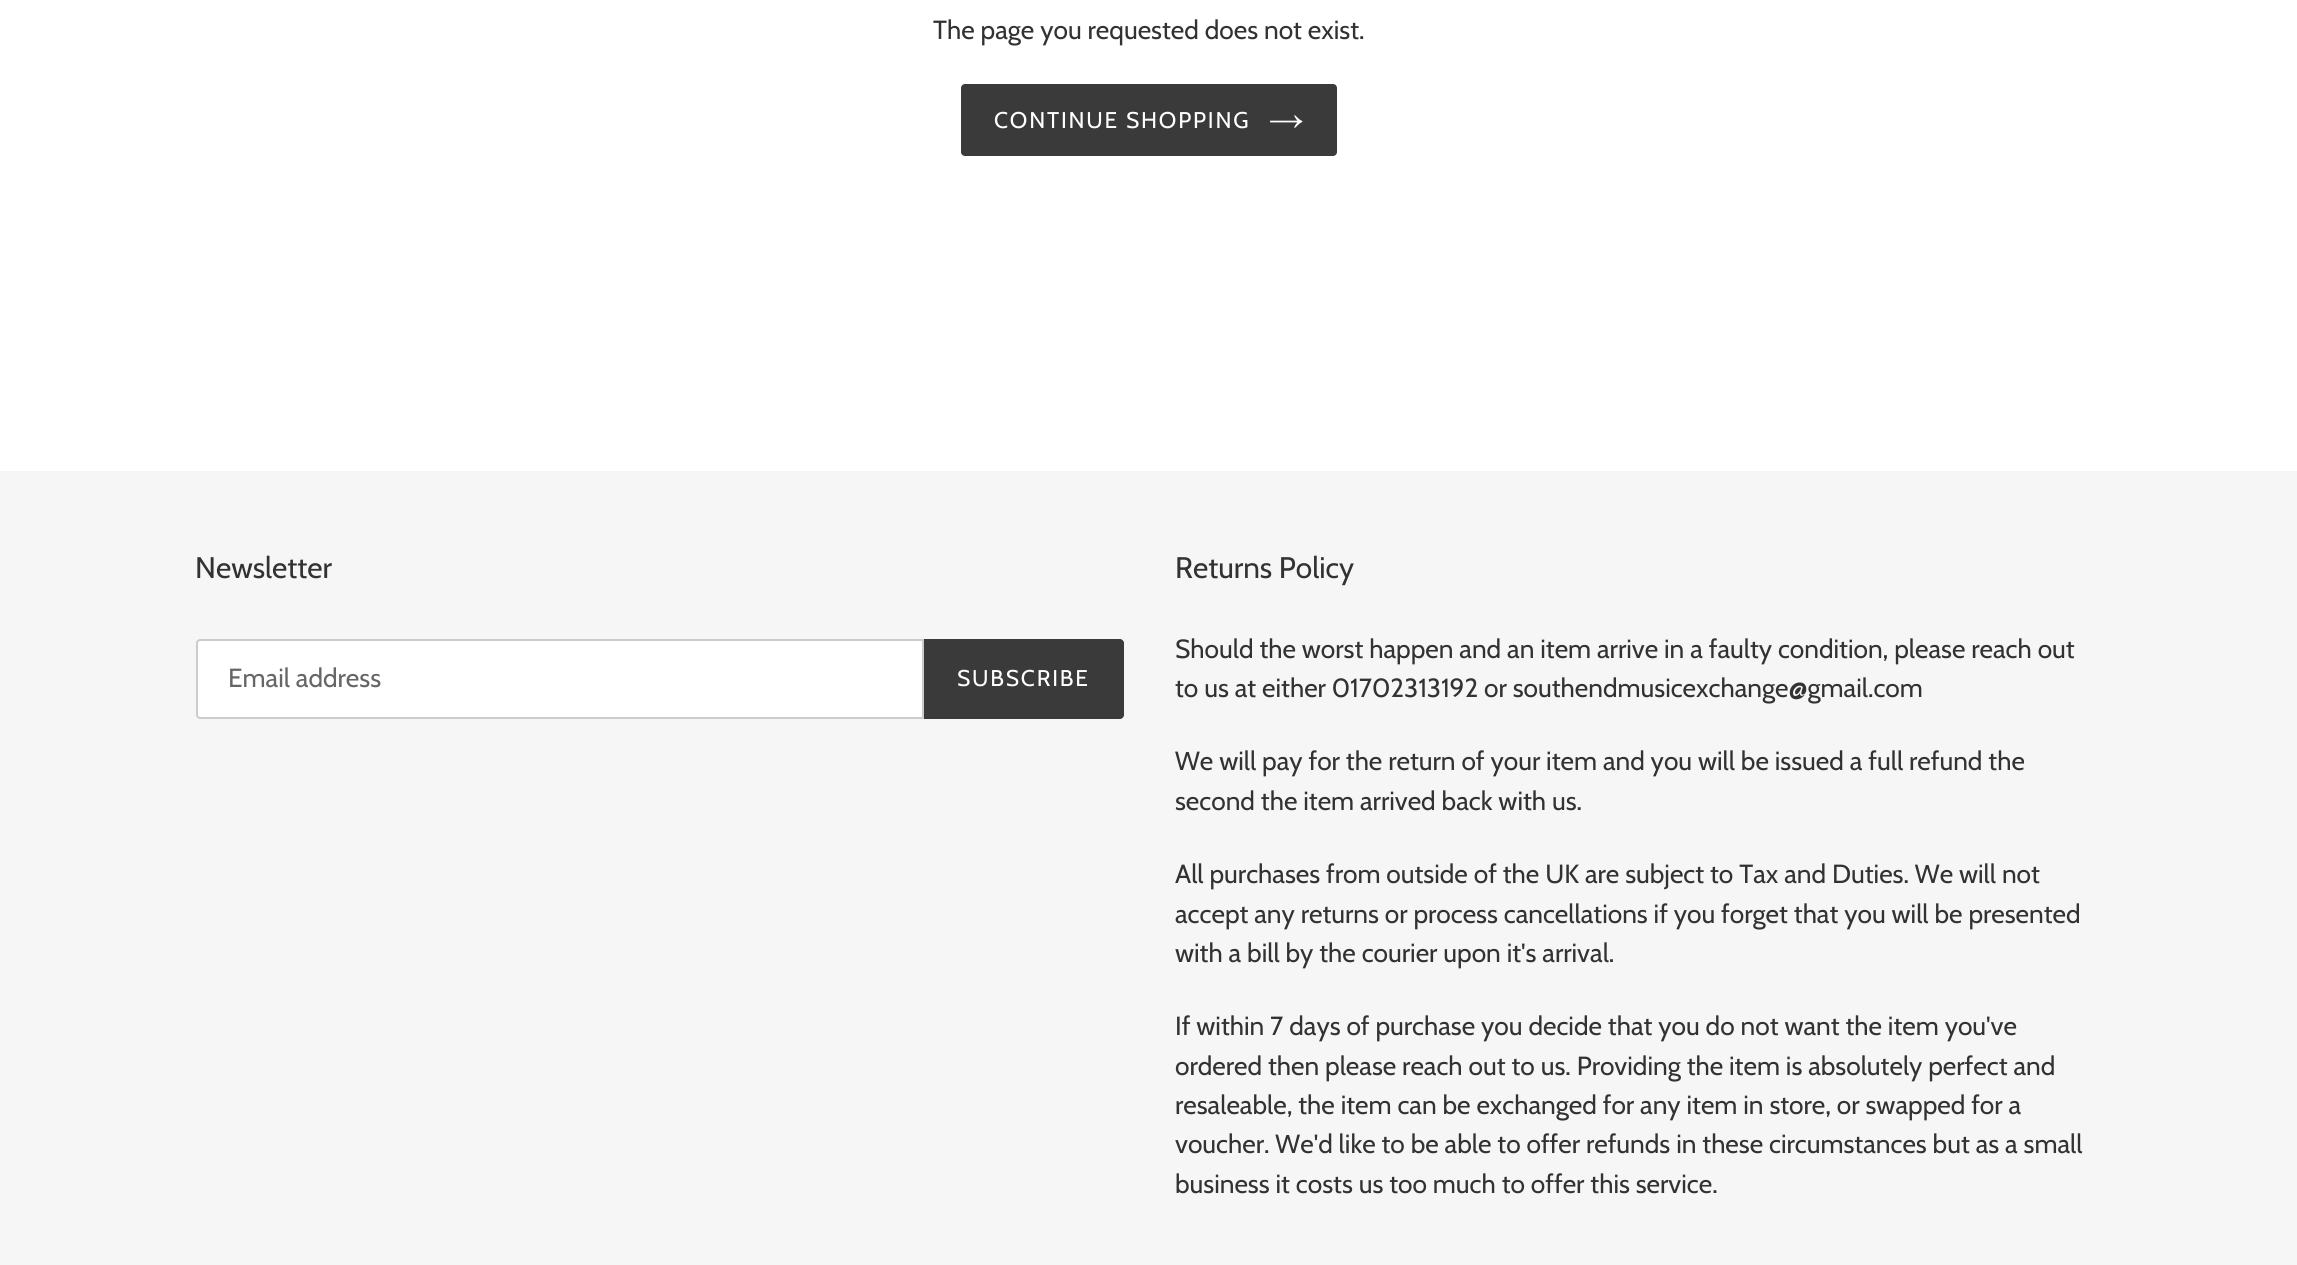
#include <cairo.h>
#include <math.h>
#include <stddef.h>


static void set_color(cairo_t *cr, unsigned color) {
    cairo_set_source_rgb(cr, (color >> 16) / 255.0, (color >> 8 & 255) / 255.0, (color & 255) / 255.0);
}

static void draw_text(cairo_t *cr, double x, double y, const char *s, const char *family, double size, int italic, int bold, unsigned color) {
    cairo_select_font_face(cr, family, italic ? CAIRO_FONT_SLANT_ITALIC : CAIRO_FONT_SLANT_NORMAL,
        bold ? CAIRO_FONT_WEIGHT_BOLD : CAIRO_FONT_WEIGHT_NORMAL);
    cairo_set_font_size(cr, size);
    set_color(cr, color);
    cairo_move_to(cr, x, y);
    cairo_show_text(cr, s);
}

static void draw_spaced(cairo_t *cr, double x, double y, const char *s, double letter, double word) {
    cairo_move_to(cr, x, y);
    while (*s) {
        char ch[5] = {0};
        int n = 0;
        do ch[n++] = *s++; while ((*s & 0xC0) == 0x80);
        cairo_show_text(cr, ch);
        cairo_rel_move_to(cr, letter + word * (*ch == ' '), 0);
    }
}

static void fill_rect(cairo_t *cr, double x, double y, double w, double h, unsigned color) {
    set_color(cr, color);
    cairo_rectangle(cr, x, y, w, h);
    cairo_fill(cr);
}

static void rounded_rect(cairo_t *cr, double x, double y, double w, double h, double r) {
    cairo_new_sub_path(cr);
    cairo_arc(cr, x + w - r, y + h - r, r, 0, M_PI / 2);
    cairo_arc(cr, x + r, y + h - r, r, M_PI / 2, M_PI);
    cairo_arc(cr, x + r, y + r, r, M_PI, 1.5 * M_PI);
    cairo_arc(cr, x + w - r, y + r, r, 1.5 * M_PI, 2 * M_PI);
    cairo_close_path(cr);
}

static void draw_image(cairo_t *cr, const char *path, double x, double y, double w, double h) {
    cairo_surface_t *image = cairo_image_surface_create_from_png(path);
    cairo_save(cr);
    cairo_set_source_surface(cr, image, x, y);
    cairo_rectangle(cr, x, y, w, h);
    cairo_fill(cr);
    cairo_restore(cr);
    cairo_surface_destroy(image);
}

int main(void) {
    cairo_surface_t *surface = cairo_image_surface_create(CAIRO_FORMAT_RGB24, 2297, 1265);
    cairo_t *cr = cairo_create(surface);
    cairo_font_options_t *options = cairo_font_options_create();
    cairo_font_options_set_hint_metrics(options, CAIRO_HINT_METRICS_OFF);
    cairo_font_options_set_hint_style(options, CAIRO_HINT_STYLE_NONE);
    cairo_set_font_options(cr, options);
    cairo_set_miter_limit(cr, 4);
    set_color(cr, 0xFFFFFF);
    cairo_paint(cr);
    draw_text(cr, 933, 39, "The page you requested does not exist.", "Cabin", 26.25, 0, 0, 0x333232);
    set_color(cr, 0x3A3A3A);
    rounded_rect(cr, 961, 84, 376, 72, 4);
    cairo_fill(cr);
    cairo_set_font_size(cr, 22.75);
    set_color(cr, 0xFFFFFF);
    draw_spaced(cr, 994, 128, "CONTINUE SHOPPING", 1.8, 0);
    draw_image(cr, "assets/img1.png", 1270, 115, 33, 13);
    fill_rect(cr, 0, 471, 2297, 794, 0xF6F6F6);
    draw_text(cr, 195, 578, "Newsletter", "Cabin", 29.75, 0, 0, 0x333232);
    set_color(cr, 0xFFFFFF);
    cairo_new_path(cr);
    cairo_move_to(cr, 200, 640);
    cairo_line_to(cr, 923, 640);
    cairo_line_to(cr, 923, 718);
    cairo_line_to(cr, 200, 718);
    cairo_curve_to(cr, 198.5, 718, 197, 716.5, 197, 715);
    cairo_line_to(cr, 197, 643);
    cairo_curve_to(cr, 197, 641.5, 198.5, 640, 200, 640);
    cairo_close_path(cr);
    cairo_fill_preserve(cr);
    set_color(cr, 0xCCCCCC);
    cairo_stroke(cr);
    draw_text(cr, 228, 687, "Email address", "Cabin", 26.25, 0, 0, 0x666666);
    set_color(cr, 0x3A3A3A);
    cairo_new_path(cr);
    cairo_move_to(cr, 924, 639);
    cairo_line_to(cr, 1120, 639);
    cairo_curve_to(cr, 1122, 639, 1124, 641, 1124, 643);
    cairo_line_to(cr, 1124, 715);
    cairo_curve_to(cr, 1124, 717, 1122, 719, 1120, 719);
    cairo_line_to(cr, 924, 719);
    cairo_close_path(cr);
    cairo_fill(cr);
    cairo_set_font_size(cr, 22.75);
    set_color(cr, 0xFFFFFF);
    draw_spaced(cr, 957, 686, "SUBSCRIBE", 1.8, 0);
    draw_text(cr, 1175, 578, "Returns Policy", "Cabin", 29.75, 0, 0, 0x333232);
    draw_text(cr, 1175, 658, "Should the worst happen and an item arrive in a faulty condition, please reach out", "Cabin", 26.25, 0, 0, 0x333232);
    draw_text(cr, 1175, 697, "to us at either 01702313192 or southendmusicexchange@gmail.com", "Cabin", 26.25, 0, 0, 0x333232);
    draw_text(cr, 1175, 770, "We will pay for the return of your item and you will be issued a full refund the", "Cabin", 26.25, 0, 0, 0x333232);
    draw_text(cr, 1175, 810, "second the item arrived back with us.", "Cabin", 26.25, 0, 0, 0x333232);
    draw_text(cr, 1175, 883, "All purchases from outside of the UK are subject to Tax and Duties. We will not", "Cabin", 26.25, 0, 0, 0x333232);
    draw_text(cr, 1175, 923, "accept any returns or process cancellations if you forget that you will be presented", "Cabin", 26.25, 0, 0, 0x333232);
    draw_text(cr, 1175, 962, "with a bill by the courier upon it's arrival.", "Cabin", 26.25, 0, 0, 0x333232);
    draw_text(cr, 1175, 1035, "If within 7 days of purchase you decide that you do not want the item you've", "Cabin", 26.25, 0, 0, 0x333232);
    draw_text(cr, 1175, 1075, "ordered then please reach out to us. Providing the item is absolutely perfect and", "Cabin", 26.25, 0, 0, 0x333232);
    draw_text(cr, 1175, 1114, "resaleable, the item can be exchanged for any item in store, or swapped for a", "Cabin", 26.25, 0, 0, 0x333232);
    draw_text(cr, 1175, 1153, "voucher. We'd like to be able to offer refunds in these circumstances but as a small", "Cabin", 26.25, 0, 0, 0x333232);
    draw_text(cr, 1175, 1193, "business it costs us too much to offer this service.", "Cabin", 26.25, 0, 0, 0x333232);
    cairo_surface_write_to_png(surface, "output.png");
    cairo_font_options_destroy(options);
    cairo_destroy(cr);
    cairo_surface_destroy(surface);
    return 0;
}
